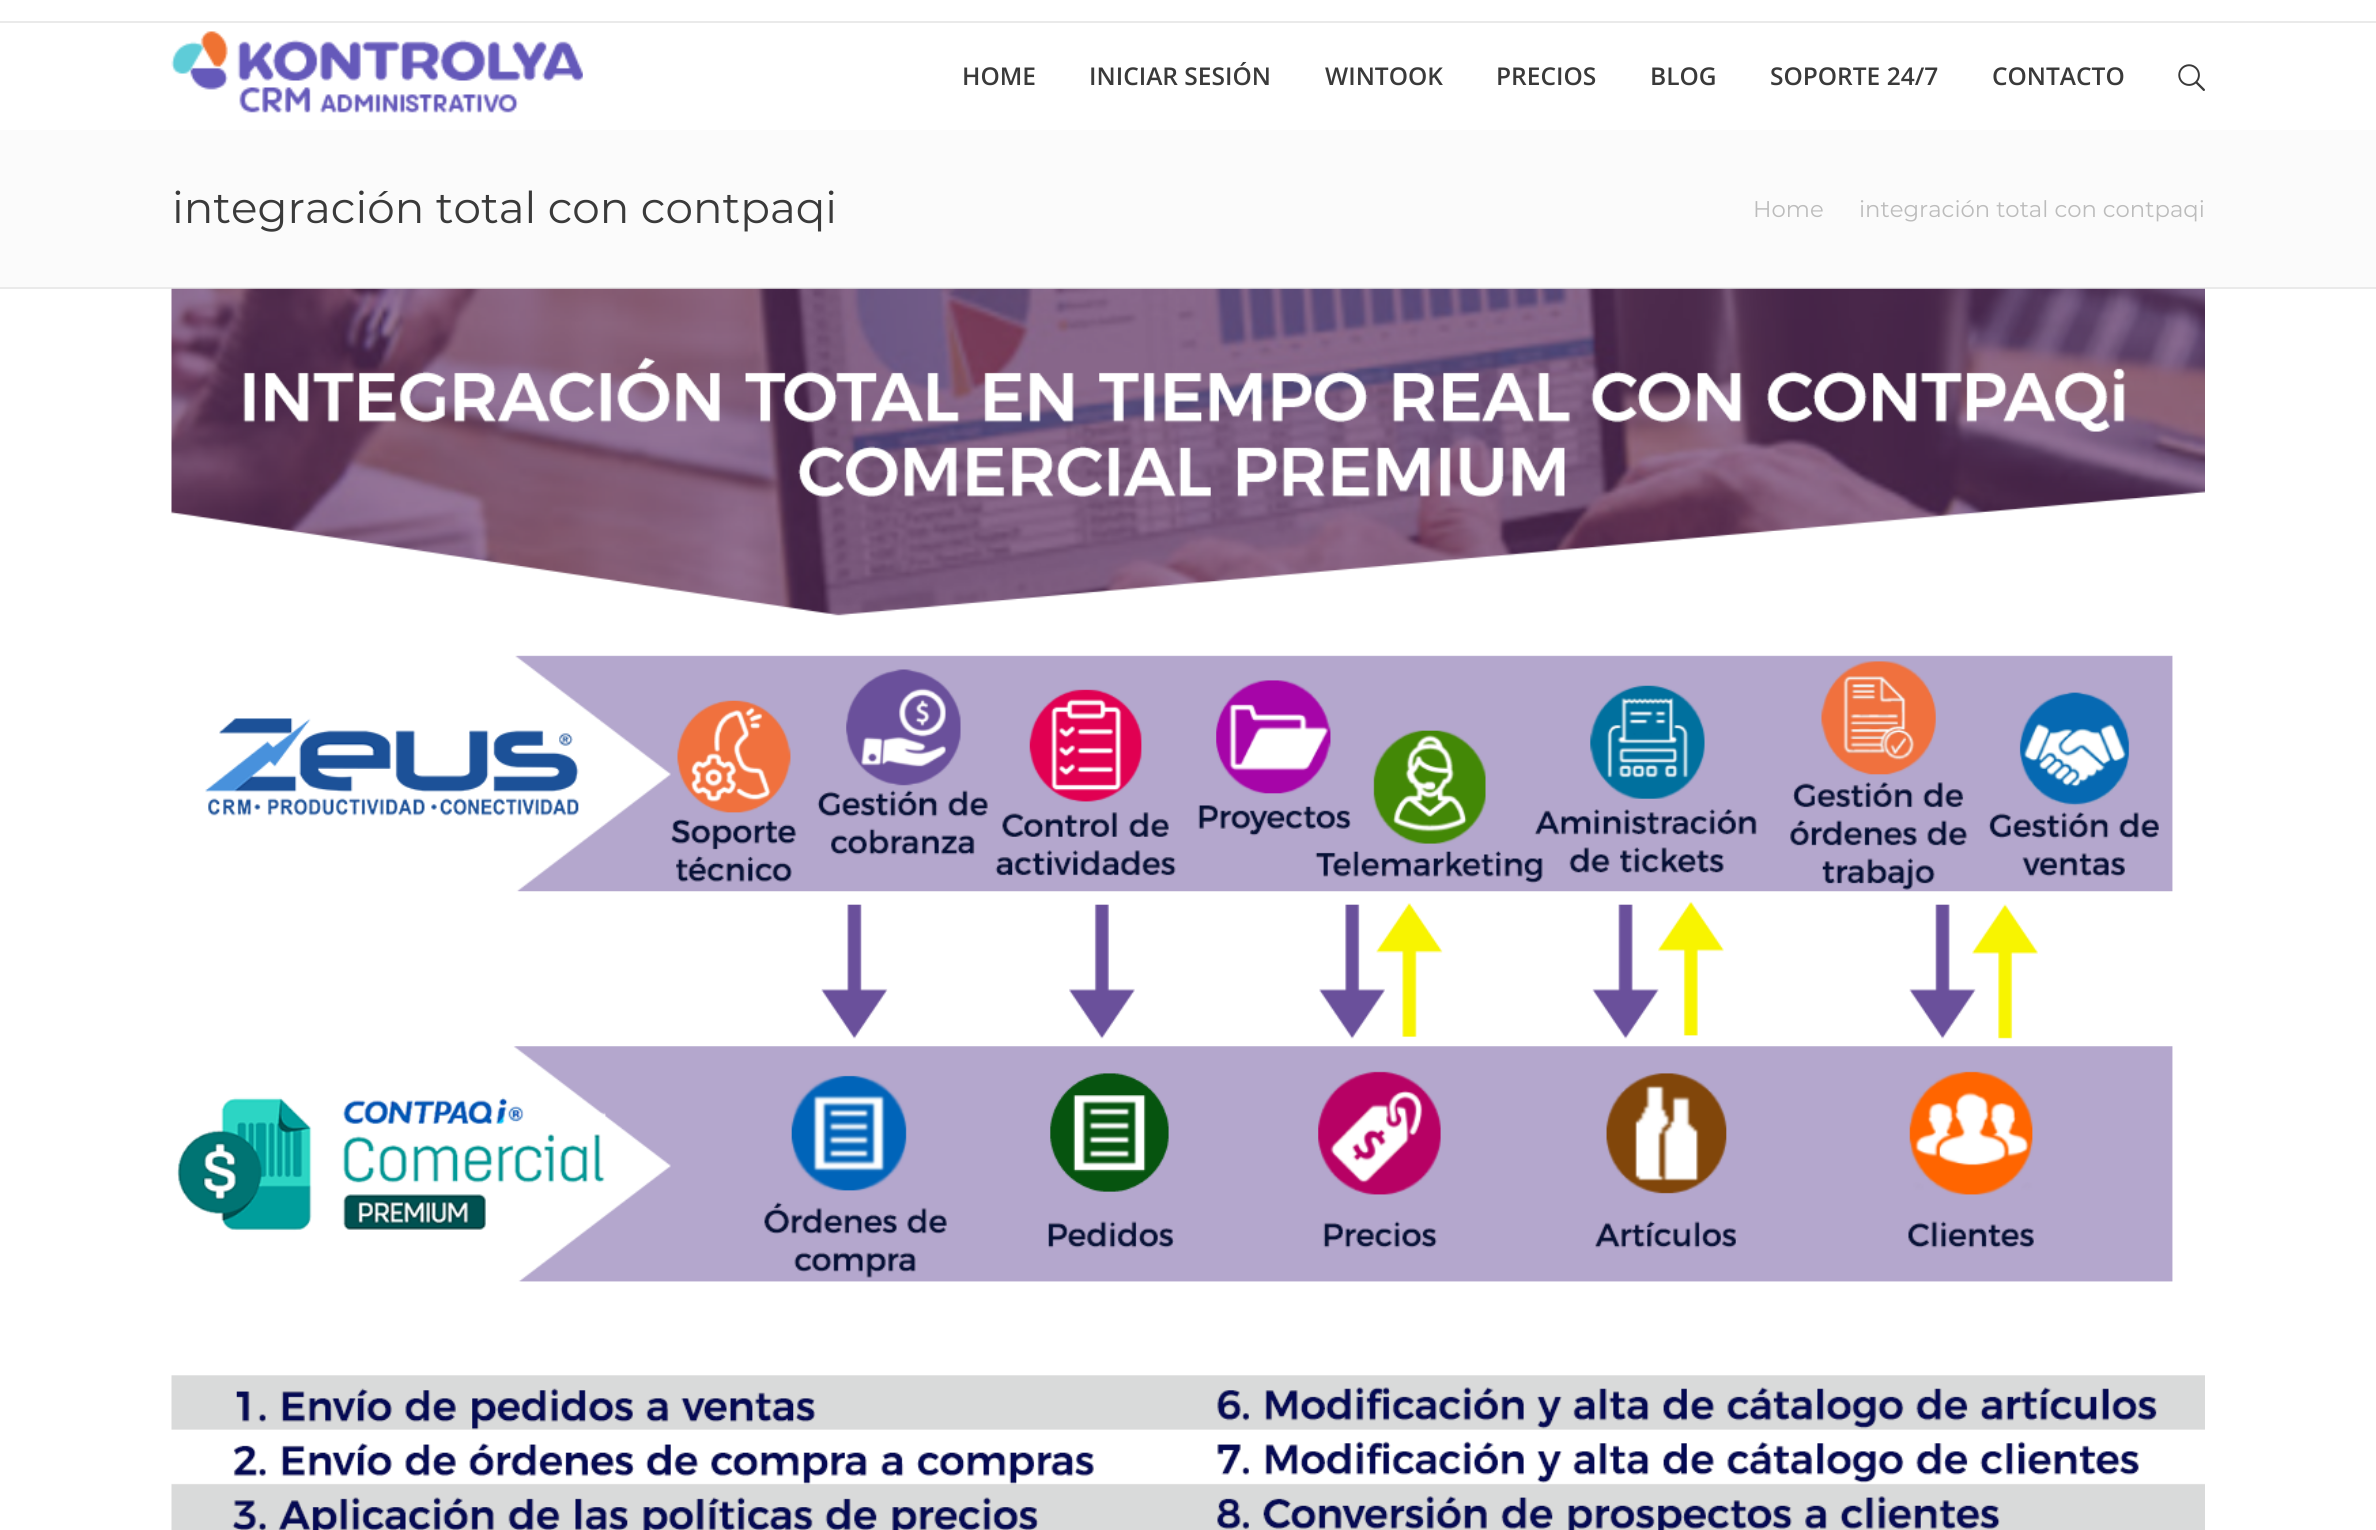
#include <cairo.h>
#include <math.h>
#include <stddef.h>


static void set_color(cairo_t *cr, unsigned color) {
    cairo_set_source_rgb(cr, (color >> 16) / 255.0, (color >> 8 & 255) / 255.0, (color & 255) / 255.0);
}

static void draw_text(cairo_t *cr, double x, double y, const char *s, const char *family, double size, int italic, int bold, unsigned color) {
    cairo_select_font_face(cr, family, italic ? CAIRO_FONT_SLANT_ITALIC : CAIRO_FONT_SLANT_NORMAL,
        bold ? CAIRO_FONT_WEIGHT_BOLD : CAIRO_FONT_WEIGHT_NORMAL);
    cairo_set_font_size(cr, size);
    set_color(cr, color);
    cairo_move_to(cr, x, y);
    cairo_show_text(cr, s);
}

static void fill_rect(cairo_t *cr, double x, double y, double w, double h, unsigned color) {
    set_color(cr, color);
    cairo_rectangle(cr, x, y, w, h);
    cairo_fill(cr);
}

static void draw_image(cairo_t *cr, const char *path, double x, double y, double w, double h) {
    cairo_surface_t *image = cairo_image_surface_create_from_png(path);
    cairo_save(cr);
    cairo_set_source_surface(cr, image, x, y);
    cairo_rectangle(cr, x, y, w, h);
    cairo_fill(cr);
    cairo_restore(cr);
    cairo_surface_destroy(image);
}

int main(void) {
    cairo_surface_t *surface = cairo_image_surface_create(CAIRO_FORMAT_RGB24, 2376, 1530);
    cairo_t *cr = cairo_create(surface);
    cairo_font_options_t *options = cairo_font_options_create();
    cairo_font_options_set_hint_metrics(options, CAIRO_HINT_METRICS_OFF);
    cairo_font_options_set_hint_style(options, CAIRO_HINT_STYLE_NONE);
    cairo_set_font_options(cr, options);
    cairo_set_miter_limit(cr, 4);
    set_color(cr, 0xFFFFFF);
    cairo_paint(cr);
    fill_rect(cr, 0, 21, 2376, 2, 0xEAEAEA);
    draw_image(cr, "assets/img1.png", 171, 31, 412, 82);
    draw_text(cr, 962, 85, "HOME", "Open Sans SemiBold", 24.5, 0, 0, 0x3A3A3A);
    draw_text(cr, 1089, 85, "INICIAR SESIÓN", "Open Sans SemiBold", 24.5, 0, 0, 0x3A3A3A);
    draw_text(cr, 1325, 85, "WINTOOK", "Open Sans SemiBold", 24.5, 0, 0, 0x3A3A3A);
    draw_text(cr, 1496, 85, "PRECIOS", "Open Sans SemiBold", 24.5, 0, 0, 0x3A3A3A);
    draw_text(cr, 1650, 85, "BLOG", "Open Sans SemiBold", 24.5, 0, 0, 0x3A3A3A);
    draw_text(cr, 1770, 85, "SOPORTE 24/7", "Open Sans SemiBold", 24.5, 0, 0, 0x3A3A3A);
    draw_text(cr, 1992, 85, "CONTACTO", "Open Sans SemiBold", 24.5, 0, 0, 0x3A3A3A);
    draw_image(cr, "assets/img2.png", 2178, 64, 27, 27);
    fill_rect(cr, 0, 130, 2376, 157, 0xFBFBFB);
    fill_rect(cr, 0, 287, 2376, 2, 0xEAEAEA);
    draw_text(cr, 172, 223, "integración total con contpaqi", "Montserrat Thin", 43.75, 0, 0, 0x3A3A3A);
    draw_text(cr, 1753, 217, "Home", "Montserrat Thin", 22.75, 0, 0, 0xBCBCBC);
    draw_text(cr, 1859, 217, "integración total con contpaqi", "Montserrat Thin", 22.75, 0, 0, 0xBCBCBC);
    draw_image(cr, "assets/img3.png", 171, 288, 2034, 1242);
    cairo_surface_write_to_png(surface, "output.png");
    cairo_font_options_destroy(options);
    cairo_destroy(cr);
    cairo_surface_destroy(surface);
    return 0;
}
